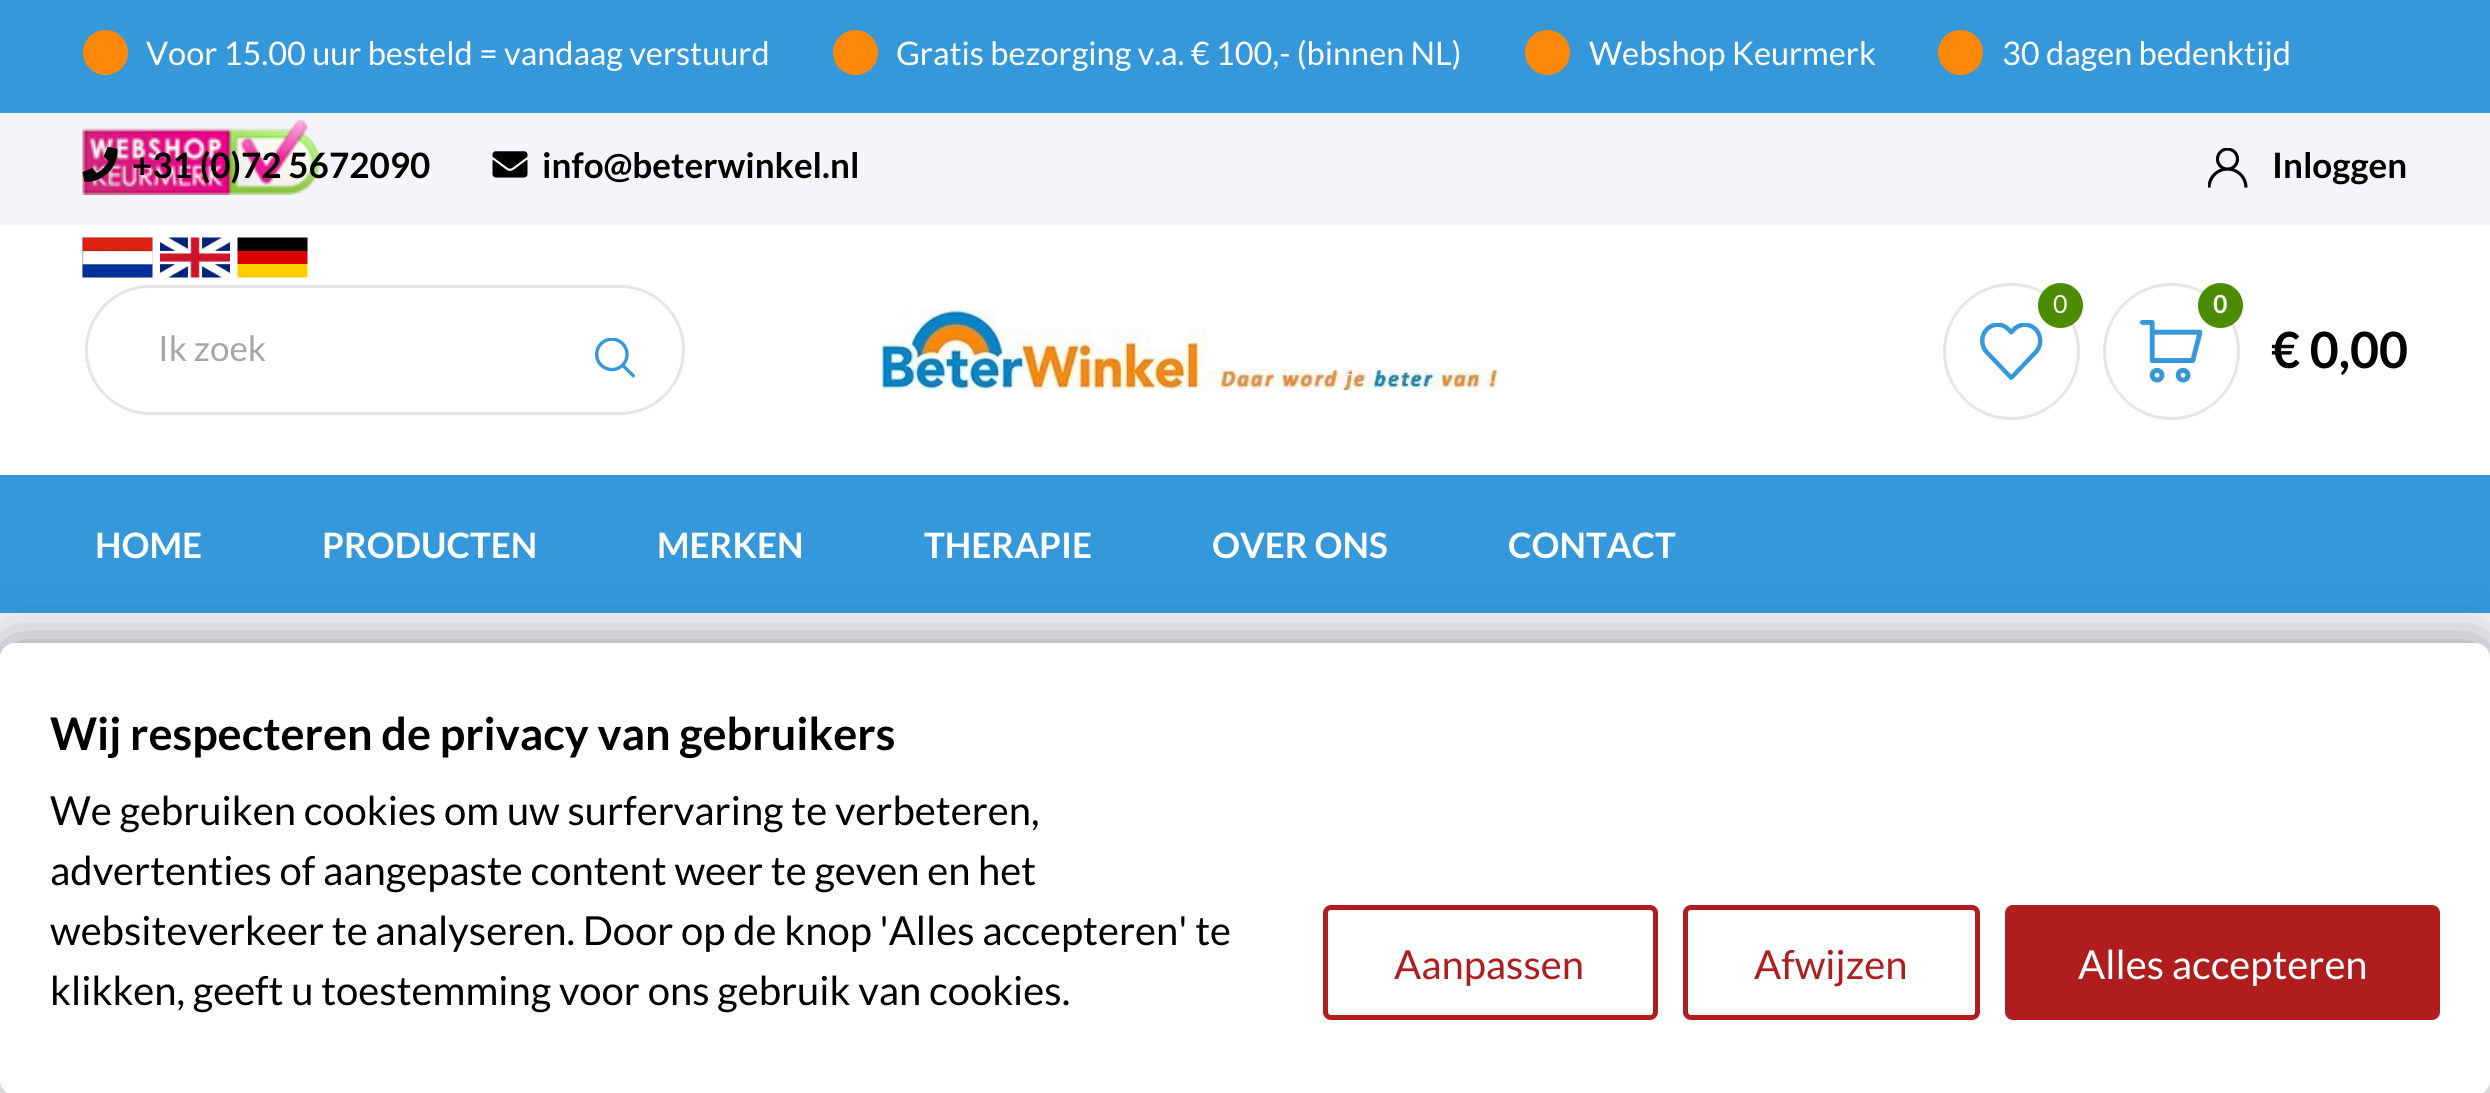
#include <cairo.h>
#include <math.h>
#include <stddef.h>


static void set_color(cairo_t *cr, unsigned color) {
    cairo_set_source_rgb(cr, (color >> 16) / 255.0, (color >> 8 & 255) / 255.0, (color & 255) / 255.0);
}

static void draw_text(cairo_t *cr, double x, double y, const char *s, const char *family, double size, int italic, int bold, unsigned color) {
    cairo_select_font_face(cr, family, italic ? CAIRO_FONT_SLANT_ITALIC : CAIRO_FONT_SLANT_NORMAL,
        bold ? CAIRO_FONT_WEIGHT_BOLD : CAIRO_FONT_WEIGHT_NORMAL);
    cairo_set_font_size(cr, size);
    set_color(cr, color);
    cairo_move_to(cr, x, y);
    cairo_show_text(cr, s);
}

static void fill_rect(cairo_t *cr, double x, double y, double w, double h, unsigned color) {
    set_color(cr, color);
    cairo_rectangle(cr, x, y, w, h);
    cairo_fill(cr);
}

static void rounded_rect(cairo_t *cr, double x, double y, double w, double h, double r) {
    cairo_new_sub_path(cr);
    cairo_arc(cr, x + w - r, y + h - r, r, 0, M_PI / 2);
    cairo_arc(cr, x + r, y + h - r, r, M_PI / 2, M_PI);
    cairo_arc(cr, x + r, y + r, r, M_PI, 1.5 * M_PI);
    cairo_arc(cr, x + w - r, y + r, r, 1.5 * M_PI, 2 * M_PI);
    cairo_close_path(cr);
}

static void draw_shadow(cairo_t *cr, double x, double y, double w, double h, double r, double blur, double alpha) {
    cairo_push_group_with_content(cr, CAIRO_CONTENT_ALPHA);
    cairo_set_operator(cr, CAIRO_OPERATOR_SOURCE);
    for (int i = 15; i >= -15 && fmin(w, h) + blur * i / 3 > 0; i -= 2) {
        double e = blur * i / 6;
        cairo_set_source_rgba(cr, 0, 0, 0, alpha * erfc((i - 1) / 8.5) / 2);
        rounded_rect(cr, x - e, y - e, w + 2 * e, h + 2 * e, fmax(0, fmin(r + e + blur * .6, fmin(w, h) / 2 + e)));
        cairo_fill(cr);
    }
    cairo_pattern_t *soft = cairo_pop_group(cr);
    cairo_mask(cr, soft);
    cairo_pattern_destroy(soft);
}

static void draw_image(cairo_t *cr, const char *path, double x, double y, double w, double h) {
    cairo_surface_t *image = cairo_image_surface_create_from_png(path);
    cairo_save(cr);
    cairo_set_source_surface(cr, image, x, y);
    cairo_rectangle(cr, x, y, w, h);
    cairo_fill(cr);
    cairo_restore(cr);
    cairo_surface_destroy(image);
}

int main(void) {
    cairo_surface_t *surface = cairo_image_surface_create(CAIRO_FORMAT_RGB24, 2490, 1093);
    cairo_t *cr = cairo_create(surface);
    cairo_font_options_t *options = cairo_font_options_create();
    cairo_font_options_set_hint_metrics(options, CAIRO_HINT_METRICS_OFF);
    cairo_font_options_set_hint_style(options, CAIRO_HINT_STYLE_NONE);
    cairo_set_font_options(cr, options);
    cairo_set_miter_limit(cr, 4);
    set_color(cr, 0xFFFFFF);
    cairo_paint(cr);
    fill_rect(cr, 0, 0, 2490, 113, 0x3498DB);
    set_color(cr, 0xFC8809);
    cairo_arc(cr, 105.5, 52.5, 22.5, 0, 2 * M_PI);
    cairo_fill(cr);
    draw_text(cr, 146, 65, "Voor 15.00 uur besteld = vandaag verstuurd", "Lato", 32.5, 0, 0, 0xFFFFFF);
    set_color(cr, 0xFC8809);
    cairo_new_path(cr);
    cairo_arc(cr, 855.5, 52.5, 22.5, 0, 2 * M_PI);
    cairo_fill(cr);
    draw_text(cr, 896, 65, "Gratis bezorging v.a. € 100,- (binnen NL)", "Lato", 32.5, 0, 0, 0xFFFFFF);
    set_color(cr, 0xFC8809);
    cairo_new_path(cr);
    cairo_arc(cr, 1547.5, 52.5, 22.5, 0, 2 * M_PI);
    cairo_fill(cr);
    draw_text(cr, 1589, 65, "Webshop Keurmerk", "Lato", 32.5, 0, 0, 0xFFFFFF);
    set_color(cr, 0xFC8809);
    cairo_new_path(cr);
    cairo_arc(cr, 1960.5, 52.5, 22.5, 0, 2 * M_PI);
    cairo_fill(cr);
    draw_text(cr, 2002, 65, "30 dagen bedenktijd", "Lato", 32.5, 0, 0, 0xFFFFFF);
    fill_rect(cr, 0, 113, 2490, 112, 0xF5F4F9);
    draw_image(cr, "assets/img1.png", 82, 120, 238, 75);
    draw_image(cr, "assets/img2.png", 82, 237, 71, 41);
    draw_image(cr, "assets/img3.png", 160, 237, 70, 41);
    draw_image(cr, "assets/img4.png", 237, 237, 71, 41);
    draw_image(cr, "assets/img5.png", 82, 146, 36, 36);
    draw_text(cr, 132, 178, "+31 (0)72 5672090", "Lato", 35, 0, 1, 0x000000);
    draw_image(cr, "assets/img6.png", 492, 151, 36, 27);
    draw_text(cr, 542, 178, "info@beterwinkel.nl", "Lato", 35, 0, 1, 0x000000);
    draw_image(cr, "assets/img7.png", 2208, 148, 40, 40);
    draw_text(cr, 2272, 178, "Inloggen", "Lato", 35, 0, 1, 0x000000);
    rounded_rect(cr, 86.5, 286.5, 597, 127, 63.5);
    set_color(cr, 0xE5E5E5);
    cairo_set_line_width(cr, 3);
    cairo_stroke(cr);
    draw_text(cr, 158, 361, "Ik zoek", "Lato", 35, 0, 0, 0xA6A6A6);
    draw_image(cr, "assets/img8.png", 595, 338, 40, 40);
    draw_image(cr, "assets/img9.png", 882, 310, 616, 80);
    cairo_arc(cr, 2011.5, 351.5, 67, 0, 2 * M_PI);
    set_color(cr, 0xE6E6E6);
    cairo_stroke(cr);
    draw_image(cr, "assets/img10.png", 1980, 323, 63, 57);
    set_color(cr, 0x4B8C00);
    cairo_arc(cr, 2060.5, 305.5, 22.5, 0, 2 * M_PI);
    cairo_fill(cr);
    draw_text(cr, 2053, 313, "0", "Lato", 25, 0, 0, 0xFFFFFF);
    cairo_new_path(cr);
    cairo_arc(cr, 2171.5, 351.5, 67, 0, 2 * M_PI);
    set_color(cr, 0xE6E6E6);
    cairo_stroke(cr);
    draw_image(cr, "assets/img11.png", 2140, 320, 63, 63);
    set_color(cr, 0x4B8C00);
    cairo_arc(cr, 2220.5, 305.5, 22.5, 0, 2 * M_PI);
    cairo_fill(cr);
    draw_text(cr, 2213, 313, "0", "Lato", 25, 0, 1, 0xFFFFFF);
    draw_text(cr, 2271, 368, "€ 0,00", "Lato", 50, 0, 1, 0x000000);
    fill_rect(cr, 0, 475, 2490, 138, 0x3498DB);
    draw_text(cr, 95, 558, "HOME", "Lato", 35, 0, 1, 0xFFFFFF);
    draw_text(cr, 322, 558, "PRODUCTEN", "Lato", 35, 0, 1, 0xFFFFFF);
    draw_text(cr, 657, 558, "MERKEN", "Lato", 35, 0, 1, 0xFFFFFF);
    draw_text(cr, 924, 558, "THERAPIE", "Lato", 35, 0, 1, 0xFFFFFF);
    draw_text(cr, 1212, 558, "OVER ONS", "Lato", 35, 0, 1, 0xFFFFFF);
    draw_text(cr, 1508, 558, "CONTACT", "Lato", 35, 0, 1, 0xFFFFFF);
    fill_rect(cr, 0, 613, 2490, 45, 0xF5F4F9);
    set_color(cr, 0x000000);
    draw_shadow(cr, 0, 643, 2490, 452, 15, 25, 0.4);
    set_color(cr, 0xFFFFFF);
    rounded_rect(cr, 0, 643, 2490, 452, 15);
    cairo_fill(cr);
    draw_text(cr, 50, 750, "Wij respecteren de privacy van gebruikers", "Lato", 45, 0, 1, 0x000000);
    draw_text(cr, 50, 825, "We gebruiken cookies om uw surfervaring te verbeteren,", "Lato", 40, 0, 0, 0x000000);
    draw_text(cr, 50, 885, "advertenties of aangepaste content weer te geven en het", "Lato", 40, 0, 0, 0x000000);
    draw_text(cr, 50, 945, "websiteverkeer te analyseren. Door op de knop 'Alles accepteren' te", "Lato", 40, 0, 0, 0x000000);
    draw_text(cr, 50, 1005, "klikken, geeft u toestemming voor ons gebruik van cookies.", "Lato", 40, 0, 0, 0x000000);
    rounded_rect(cr, 1325.5, 907.5, 330, 110, 5.5);
    set_color(cr, 0xAF1D1F);
    cairo_set_line_width(cr, 5);
    cairo_stroke(cr);
    draw_text(cr, 1394, 979, "Aanpassen", "Lato", 40, 0, 0, 0xAF1D1F);
    rounded_rect(cr, 1685.5, 907.5, 292, 110, 5.5);
    cairo_stroke(cr);
    draw_text(cr, 1754, 979, "Afwijzen", "Lato", 40, 0, 0, 0xAF1D1F);
    rounded_rect(cr, 2007.5, 907.5, 430, 110, 5.5);
    cairo_fill_preserve(cr);
    cairo_stroke(cr);
    draw_text(cr, 2078, 979, "Alles accepteren", "Lato", 40, 0, 0, 0xFFFFFF);
    cairo_surface_write_to_png(surface, "output.png");
    cairo_font_options_destroy(options);
    cairo_destroy(cr);
    cairo_surface_destroy(surface);
    return 0;
}
